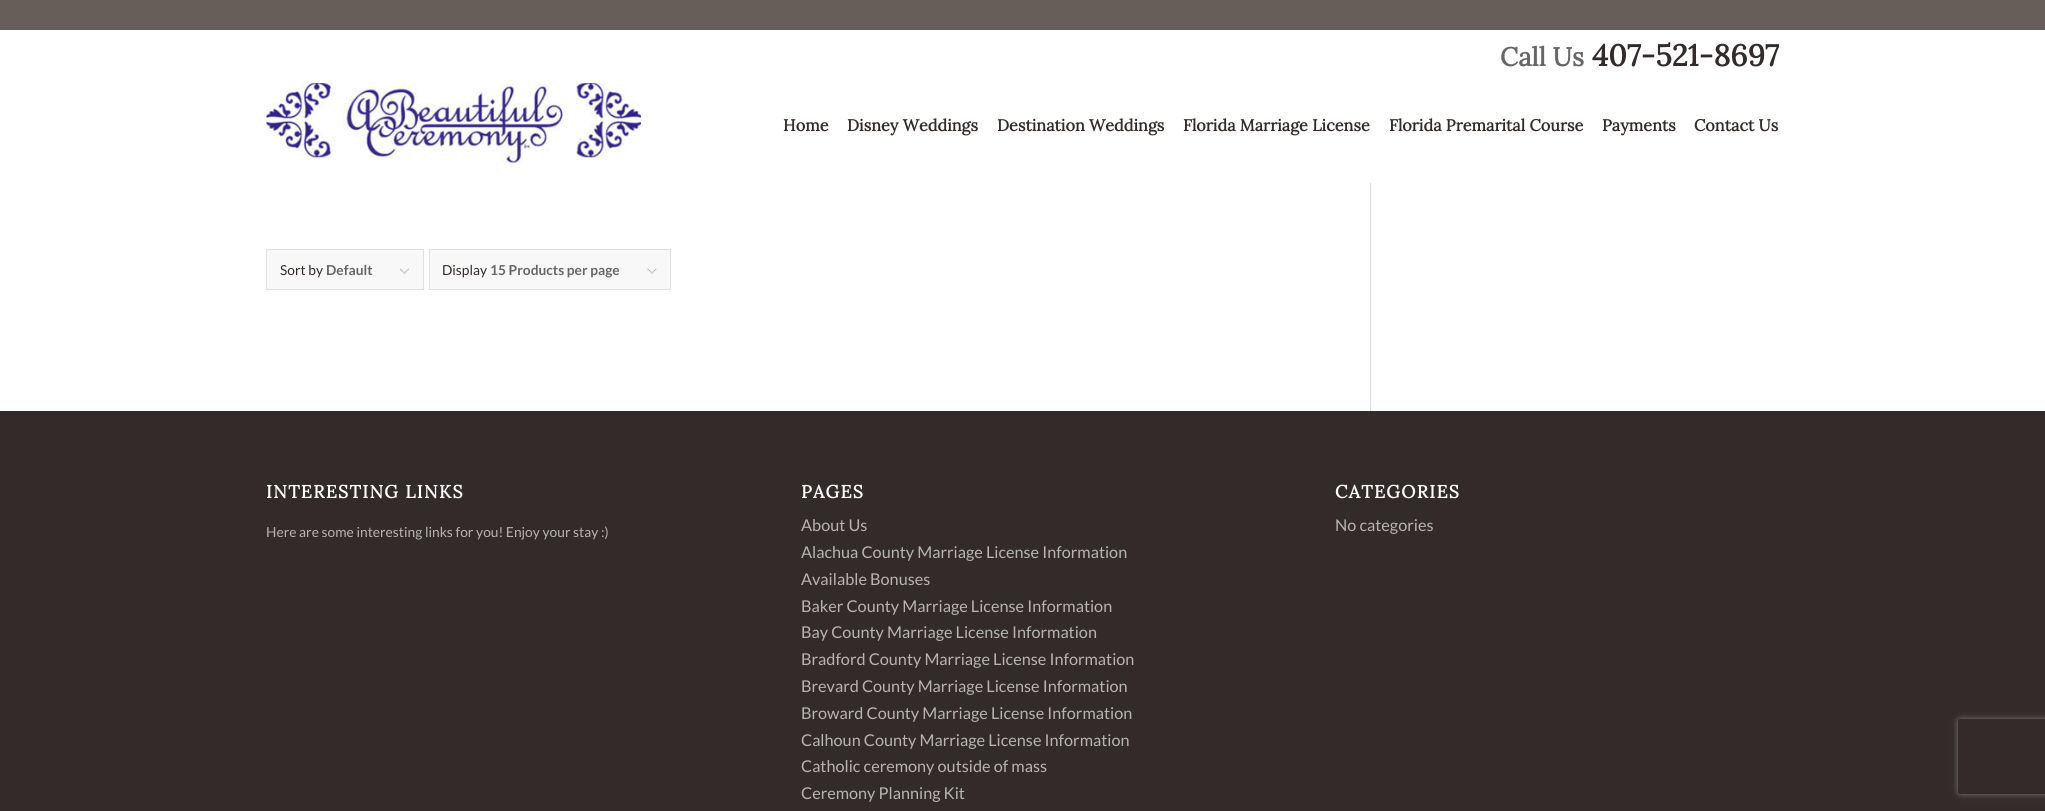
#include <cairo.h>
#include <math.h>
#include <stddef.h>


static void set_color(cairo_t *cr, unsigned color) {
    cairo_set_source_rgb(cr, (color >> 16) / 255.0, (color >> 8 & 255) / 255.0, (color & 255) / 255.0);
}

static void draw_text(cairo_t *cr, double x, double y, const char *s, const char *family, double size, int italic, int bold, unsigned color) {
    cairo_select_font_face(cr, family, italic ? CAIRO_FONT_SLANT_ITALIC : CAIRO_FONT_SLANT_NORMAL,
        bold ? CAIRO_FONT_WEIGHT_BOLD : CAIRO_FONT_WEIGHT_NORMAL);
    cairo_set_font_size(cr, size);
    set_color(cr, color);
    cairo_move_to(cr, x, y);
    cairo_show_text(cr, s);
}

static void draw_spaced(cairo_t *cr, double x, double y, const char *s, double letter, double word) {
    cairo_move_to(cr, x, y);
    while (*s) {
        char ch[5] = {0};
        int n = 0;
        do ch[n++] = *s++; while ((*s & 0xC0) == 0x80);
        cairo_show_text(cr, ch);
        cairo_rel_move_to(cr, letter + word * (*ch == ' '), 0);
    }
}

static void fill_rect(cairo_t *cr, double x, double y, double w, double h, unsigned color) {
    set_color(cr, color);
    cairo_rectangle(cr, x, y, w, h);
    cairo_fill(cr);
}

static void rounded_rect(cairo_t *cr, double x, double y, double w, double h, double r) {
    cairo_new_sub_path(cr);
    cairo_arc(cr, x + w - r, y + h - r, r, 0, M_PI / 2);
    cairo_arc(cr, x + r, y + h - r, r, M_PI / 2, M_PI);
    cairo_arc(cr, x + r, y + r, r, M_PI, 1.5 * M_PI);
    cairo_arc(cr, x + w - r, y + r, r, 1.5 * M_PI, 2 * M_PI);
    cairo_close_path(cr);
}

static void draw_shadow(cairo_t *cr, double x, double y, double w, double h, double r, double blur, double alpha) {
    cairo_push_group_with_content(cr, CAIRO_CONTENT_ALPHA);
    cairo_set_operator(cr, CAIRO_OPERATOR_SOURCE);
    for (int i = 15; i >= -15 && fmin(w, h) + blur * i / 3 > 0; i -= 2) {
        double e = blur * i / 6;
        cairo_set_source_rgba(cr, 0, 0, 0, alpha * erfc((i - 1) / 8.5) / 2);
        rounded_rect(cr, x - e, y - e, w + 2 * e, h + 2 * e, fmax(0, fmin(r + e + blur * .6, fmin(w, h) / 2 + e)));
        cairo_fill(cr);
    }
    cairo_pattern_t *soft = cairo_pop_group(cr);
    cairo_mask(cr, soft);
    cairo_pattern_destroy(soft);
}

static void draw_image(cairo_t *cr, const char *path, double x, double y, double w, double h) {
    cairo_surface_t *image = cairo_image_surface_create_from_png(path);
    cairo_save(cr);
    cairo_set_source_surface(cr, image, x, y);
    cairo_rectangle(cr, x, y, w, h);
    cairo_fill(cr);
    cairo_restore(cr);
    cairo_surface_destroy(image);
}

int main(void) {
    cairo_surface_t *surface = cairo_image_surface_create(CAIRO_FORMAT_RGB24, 2045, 811);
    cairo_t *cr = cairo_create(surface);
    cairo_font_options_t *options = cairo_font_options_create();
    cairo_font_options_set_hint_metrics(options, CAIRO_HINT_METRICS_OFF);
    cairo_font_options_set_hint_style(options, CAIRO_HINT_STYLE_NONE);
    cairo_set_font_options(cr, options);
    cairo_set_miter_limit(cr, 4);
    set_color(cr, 0xFFFFFF);
    cairo_paint(cr);
    fill_rect(cr, 0, 0, 2045, 30, 0x675E5A);
    draw_text(cr, 1500, 66, "Call Us", "Lora", 26, 0, 1, 0x666666);
    draw_text(cr, 1592, 66, "407-521-8697", "Lora", 30, 0, 1, 0x322B29);
    draw_image(cr, "assets/img1.png", 266, 83, 376, 80);
    draw_text(cr, 783, 131, "Home", "Lora", 16.25, 0, 1, 0x322B29);
    draw_text(cr, 847, 131, "Disney Weddings", "Lora", 16.25, 0, 1, 0x322B29);
    draw_text(cr, 997, 131, "Destination Weddings", "Lora", 16.25, 0, 1, 0x322B29);
    draw_text(cr, 1183, 131, "Florida Marriage License", "Lora", 16.25, 0, 1, 0x322B29);
    draw_text(cr, 1389, 131, "Florida Premarital Course", "Lora", 16.25, 0, 1, 0x322B29);
    draw_text(cr, 1602, 131, "Payments", "Lora", 16.25, 0, 1, 0x322B29);
    draw_text(cr, 1694, 131, "Contact Us", "Lora", 16.25, 0, 1, 0x322B29);
    fill_rect(cr, 1370, 183, 1, 228, 0xE1E1E1);
    fill_rect(cr, 267, 250, 156, 39, 0xF8F8F8);
    draw_image(cr, "assets/img2.png", 400, 268, 9, 6);
    cairo_rectangle(cr, 266.5, 249.5, 157, 40);
    set_color(cr, 0xE1E1E1);
    cairo_set_line_width(cr, 1);
    cairo_stroke(cr);
    draw_text(cr, 280, 275, "Sort by", "Lato", 13.75, 0, 0, 0x322B29);
    draw_text(cr, 326, 275, "Default", "Lato", 13.75, 0, 1, 0x666666);
    fill_rect(cr, 430, 250, 240, 39, 0xF8F8F8);
    draw_image(cr, "assets/img3.png", 647, 268, 10, 6);
    cairo_rectangle(cr, 429.5, 249.5, 241, 40);
    set_color(cr, 0xE1E1E1);
    cairo_stroke(cr);
    draw_text(cr, 442, 275, "Display", "Lato", 13.75, 0, 0, 0x322B29);
    draw_text(cr, 490, 275, "15 Products per page", "Lato", 13.75, 0, 1, 0x666666);
    fill_rect(cr, 0, 411, 2045, 400, 0x322B29);
    cairo_select_font_face(cr, "Lora", CAIRO_FONT_SLANT_NORMAL, CAIRO_FONT_WEIGHT_BOLD);
    cairo_set_font_size(cr, 17.9);
    set_color(cr, 0xFFFFFF);
    draw_spaced(cr, 266, 498, "INTERESTING LINKS", 1.25, 0);
    draw_text(cr, 266, 537, "Here are some interesting links for you! Enjoy your stay :)", "Lato", 13.8, 0, 0, 0xB5B5B5);
    cairo_select_font_face(cr, "Lora", CAIRO_FONT_SLANT_NORMAL, CAIRO_FONT_WEIGHT_BOLD);
    cairo_set_font_size(cr, 17.9);
    set_color(cr, 0xFFFFFF);
    draw_spaced(cr, 801, 498, "PAGES", 1.25, 0);
    draw_text(cr, 801, 531, "About Us", "Lato", 16.25, 0, 0, 0xB5B5B5);
    draw_text(cr, 801, 558, "Alachua County Marriage License Information", "Lato", 16.25, 0, 0, 0xB5B5B5);
    draw_text(cr, 801, 585, "Available Bonuses", "Lato", 16.25, 0, 0, 0xB5B5B5);
    draw_text(cr, 801, 612, "Baker County Marriage License Information", "Lato", 16.25, 0, 0, 0xB5B5B5);
    draw_text(cr, 801, 638, "Bay County Marriage License Information", "Lato", 16.25, 0, 0, 0xB5B5B5);
    draw_text(cr, 801, 665, "Bradford County Marriage License Information", "Lato", 16.25, 0, 0, 0xB5B5B5);
    draw_text(cr, 801, 692, "Brevard County Marriage License Information", "Lato", 16.25, 0, 0, 0xB5B5B5);
    draw_text(cr, 801, 719, "Broward County Marriage License Information", "Lato", 16.25, 0, 0, 0xB5B5B5);
    draw_text(cr, 801, 746, "Calhoun County Marriage License Information", "Lato", 16.25, 0, 0, 0xB5B5B5);
    draw_text(cr, 801, 772, "Catholic ceremony outside of mass", "Lato", 16.25, 0, 0, 0xB5B5B5);
    draw_text(cr, 801, 799, "Ceremony Planning Kit", "Lato", 16.25, 0, 0, 0xB5B5B5);
    cairo_select_font_face(cr, "Lora", CAIRO_FONT_SLANT_NORMAL, CAIRO_FONT_WEIGHT_BOLD);
    cairo_set_font_size(cr, 17.9);
    set_color(cr, 0xFFFFFF);
    draw_spaced(cr, 1335, 498, "CATEGORIES", 1.25, 0);
    draw_text(cr, 1335, 531, "No categories", "Lato", 16.25, 0, 0, 0xB5B5B5);
    cairo_save(cr);
    cairo_set_fill_rule(cr, CAIRO_FILL_RULE_EVEN_ODD);
    cairo_new_path(cr);
    cairo_move_to(cr, 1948, 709);
    cairo_line_to(cr, 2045, 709);
    cairo_line_to(cr, 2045, 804);
    cairo_line_to(cr, 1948, 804);
    cairo_close_path(cr);
    cairo_move_to(cr, 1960.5, 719);
    cairo_line_to(cr, 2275.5, 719);
    cairo_curve_to(cr, 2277, 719, 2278, 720, 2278, 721.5);
    cairo_line_to(cr, 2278, 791.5);
    cairo_curve_to(cr, 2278, 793, 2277, 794, 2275.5, 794);
    cairo_line_to(cr, 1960.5, 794);
    cairo_curve_to(cr, 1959, 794, 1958, 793, 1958, 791.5);
    cairo_line_to(cr, 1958, 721.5);
    cairo_curve_to(cr, 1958, 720, 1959, 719, 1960.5, 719);
    cairo_close_path(cr);
    cairo_clip(cr);
    set_color(cr, 0x808080);
    draw_shadow(cr, 1958, 719, 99, 75, 2.5, 3, 1);
    cairo_restore(cr);
    cairo_surface_write_to_png(surface, "output.png");
    cairo_font_options_destroy(options);
    cairo_destroy(cr);
    cairo_surface_destroy(surface);
    return 0;
}
